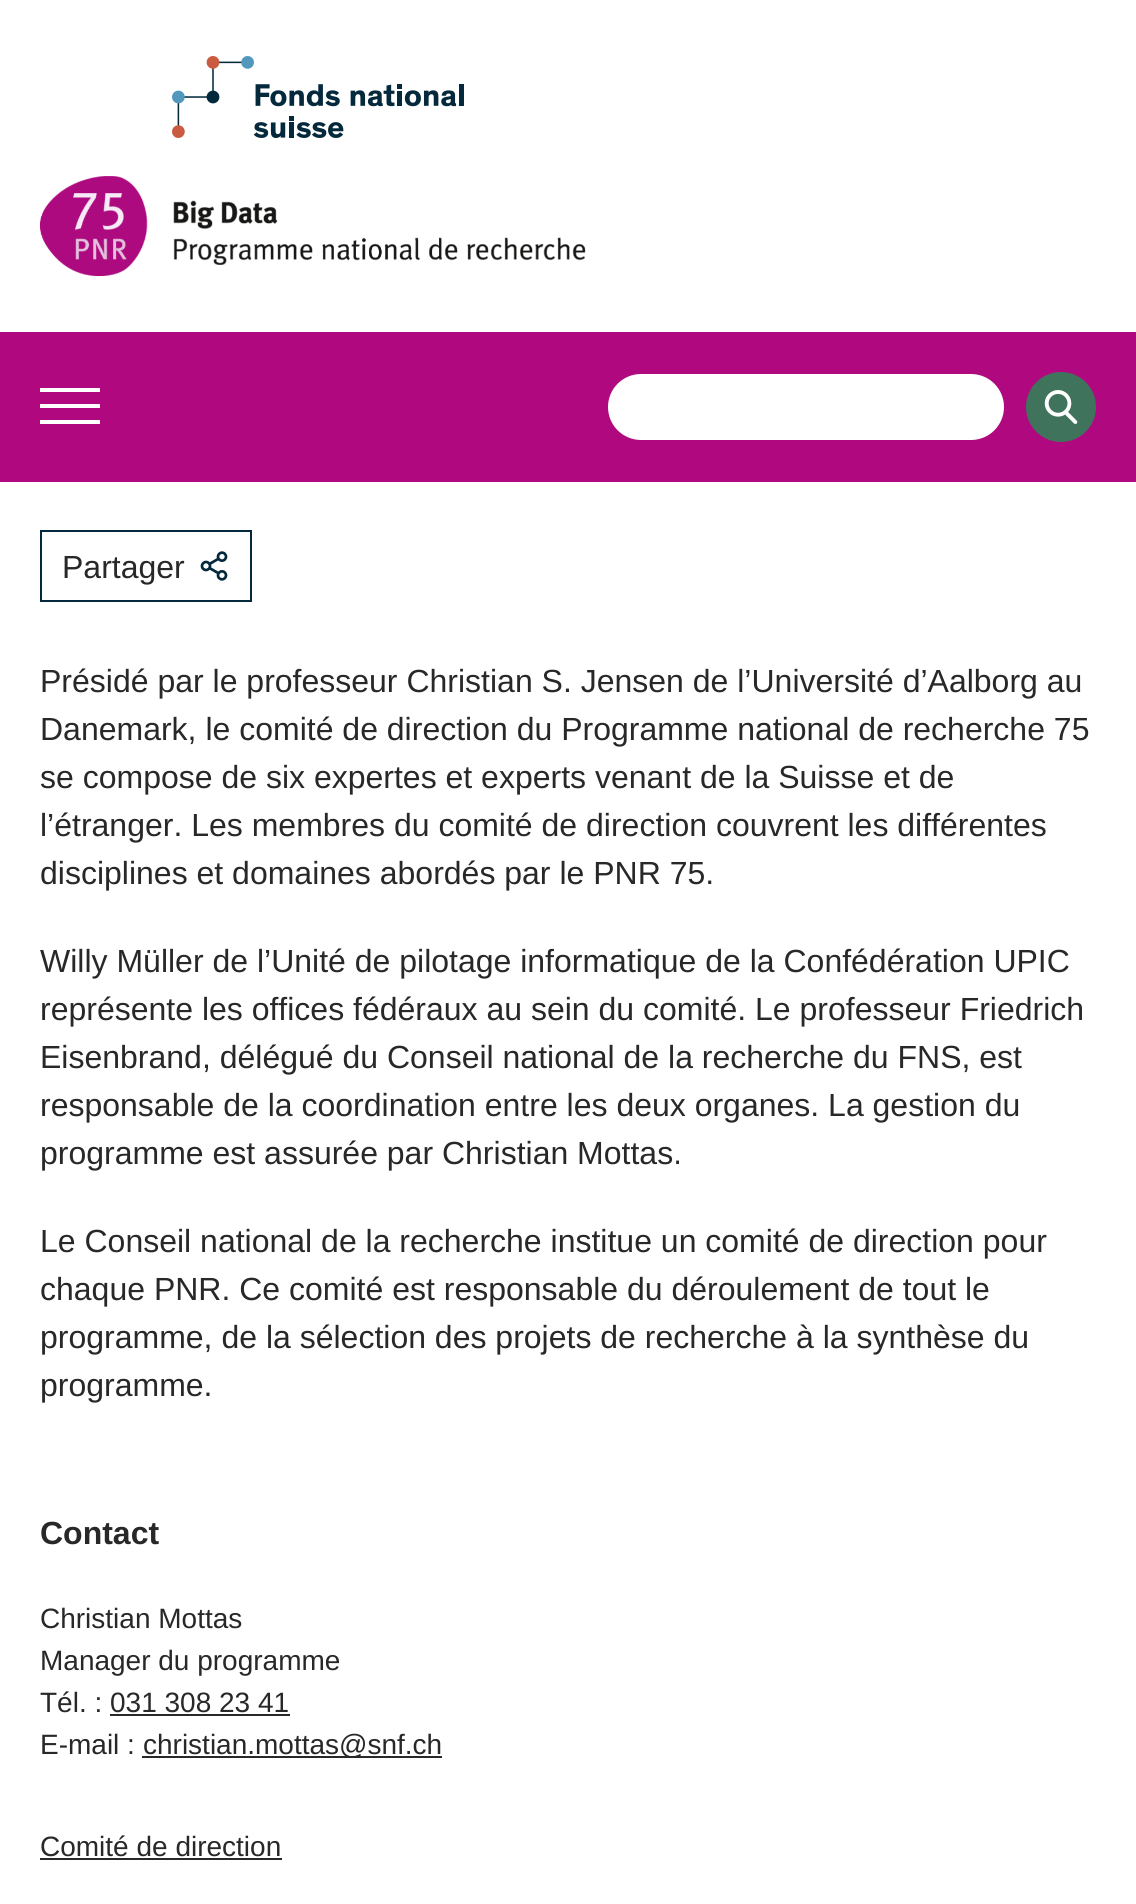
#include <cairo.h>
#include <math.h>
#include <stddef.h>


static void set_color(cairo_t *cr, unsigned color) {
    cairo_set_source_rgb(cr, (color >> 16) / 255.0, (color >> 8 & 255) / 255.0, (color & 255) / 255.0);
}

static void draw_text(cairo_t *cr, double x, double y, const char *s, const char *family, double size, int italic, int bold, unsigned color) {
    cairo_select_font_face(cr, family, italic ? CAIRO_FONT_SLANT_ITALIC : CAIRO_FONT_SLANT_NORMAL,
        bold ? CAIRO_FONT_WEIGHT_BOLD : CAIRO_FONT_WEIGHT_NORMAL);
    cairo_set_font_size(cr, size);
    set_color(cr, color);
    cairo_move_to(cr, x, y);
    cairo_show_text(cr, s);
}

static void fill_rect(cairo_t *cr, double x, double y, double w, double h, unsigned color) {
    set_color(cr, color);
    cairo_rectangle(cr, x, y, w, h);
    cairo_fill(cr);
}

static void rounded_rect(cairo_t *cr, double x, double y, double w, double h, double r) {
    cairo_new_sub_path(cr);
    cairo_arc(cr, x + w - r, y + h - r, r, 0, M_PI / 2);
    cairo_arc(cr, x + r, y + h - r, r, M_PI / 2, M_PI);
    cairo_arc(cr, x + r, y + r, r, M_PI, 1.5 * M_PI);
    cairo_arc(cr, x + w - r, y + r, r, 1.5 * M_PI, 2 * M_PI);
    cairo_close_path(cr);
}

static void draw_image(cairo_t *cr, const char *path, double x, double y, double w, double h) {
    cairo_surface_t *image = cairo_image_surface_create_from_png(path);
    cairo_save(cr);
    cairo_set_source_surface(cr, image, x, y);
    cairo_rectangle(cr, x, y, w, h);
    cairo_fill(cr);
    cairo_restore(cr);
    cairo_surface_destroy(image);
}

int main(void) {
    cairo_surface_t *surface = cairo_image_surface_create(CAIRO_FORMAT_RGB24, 1136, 1904);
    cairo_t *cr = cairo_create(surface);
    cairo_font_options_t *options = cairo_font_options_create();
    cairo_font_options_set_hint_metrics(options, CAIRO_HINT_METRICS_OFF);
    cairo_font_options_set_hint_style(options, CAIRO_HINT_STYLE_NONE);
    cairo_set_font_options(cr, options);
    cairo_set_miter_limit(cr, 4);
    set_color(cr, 0xFFFFFF);
    cairo_paint(cr);
    draw_image(cr, "assets/img1.png", 172, 56, 292, 82);
    draw_image(cr, "assets/img2.png", 40, 176, 546, 100);
    fill_rect(cr, 0, 332, 1136, 150, 0xB0097F);
    fill_rect(cr, 40, 404, 60, 4, 0xFFFFFF);
    fill_rect(cr, 40, 388, 60, 4, 0xFFFFFF);
    fill_rect(cr, 40, 420, 60, 4, 0xFFFFFF);
    rounded_rect(cr, 607, 373, 398, 68, 34);
    cairo_fill_preserve(cr);
    set_color(cr, 0xB0097F);
    cairo_stroke(cr);
    set_color(cr, 0x3F735C);
    cairo_arc(cr, 1061, 407, 35, 0, 2 * M_PI);
    cairo_fill(cr);
    draw_image(cr, "assets/img3.png", 1044, 390, 34, 34);
    cairo_rectangle(cr, 41, 531, 210, 70);
    set_color(cr, 0x04293C);
    cairo_stroke(cr);
    draw_text(cr, 62, 578, "Partager", "Liberation Sans", 32, 0, 0, 0x282828);
    draw_image(cr, "assets/img4.png", 200, 551, 28, 30);
    draw_text(cr, 40, 692, "Présidé par le professeur Christian S. Jensen de l’Université d’Aalborg au", "Liberation Sans", 32, 0, 0, 0x282828);
    draw_text(cr, 40, 740, "Danemark, le comité de direction du Programme national de recherche 75", "Liberation Sans", 32, 0, 0, 0x282828);
    draw_text(cr, 40, 788, "se compose de six expertes et experts venant de la Suisse et de", "Liberation Sans", 32, 0, 0, 0x282828);
    draw_text(cr, 40, 836, "l’étranger. Les membres du comité de direction couvrent les différentes", "Liberation Sans", 32, 0, 0, 0x282828);
    draw_text(cr, 40, 884, "disciplines et domaines abordés par le PNR 75.", "Liberation Sans", 32, 0, 0, 0x282828);
    draw_text(cr, 40, 972, "Willy Müller de l’Unité de pilotage informatique de la Confédération UPIC", "Liberation Sans", 32, 0, 0, 0x282828);
    draw_text(cr, 40, 1020, "représente les offices fédéraux au sein du comité. Le professeur Friedrich", "Liberation Sans", 32, 0, 0, 0x282828);
    draw_text(cr, 40, 1068, "Eisenbrand, délégué du Conseil national de la recherche du FNS, est", "Liberation Sans", 32, 0, 0, 0x282828);
    draw_text(cr, 40, 1116, "responsable de la coordination entre les deux organes. La gestion du", "Liberation Sans", 32, 0, 0, 0x282828);
    draw_text(cr, 40, 1164, "programme est assurée par Christian Mottas.", "Liberation Sans", 32, 0, 0, 0x282828);
    draw_text(cr, 40, 1252, "Le Conseil national de la recherche institue un comité de direction pour", "Liberation Sans", 32, 0, 0, 0x282828);
    draw_text(cr, 40, 1300, "chaque PNR. Ce comité est responsable du déroulement de tout le", "Liberation Sans", 32, 0, 0, 0x282828);
    draw_text(cr, 40, 1348, "programme, de la sélection des projets de recherche à la synthèse du", "Liberation Sans", 32, 0, 0, 0x282828);
    draw_text(cr, 40, 1396, "programme.", "Liberation Sans", 32, 0, 0, 0x282828);
    draw_text(cr, 40, 1544, "Contact", "Liberation Sans", 32, 0, 1, 0x282828);
    draw_text(cr, 40, 1628, "Christian Mottas", "Liberation Sans", 28, 0, 0, 0x282828);
    draw_text(cr, 40, 1670, "Manager du programme", "Liberation Sans", 28, 0, 0, 0x282828);
    draw_text(cr, 40, 1712, "Tél. : 031 308 23 41", "Liberation Sans", 28, 0, 0, 0x282828);
    fill_rect(cr, 110, 1714, 180, 2, 0x282828);
    draw_text(cr, 40, 1754, "E-mail :", "Liberation Sans", 28, 0, 0, 0x282828);
    fill_rect(cr, 142, 1756, 300, 2, 0x282828);
    draw_text(cr, 143, 1754, "christian.mottas@snf.ch", "Liberation Sans", 28, 0, 0, 0x282828);
    draw_text(cr, 40, 1856, "Comité de direction", "Liberation Sans", 28, 0, 0, 0x282828);
    fill_rect(cr, 40, 1858, 242, 2, 0x282828);
    cairo_surface_write_to_png(surface, "output.png");
    cairo_font_options_destroy(options);
    cairo_destroy(cr);
    cairo_surface_destroy(surface);
    return 0;
}
